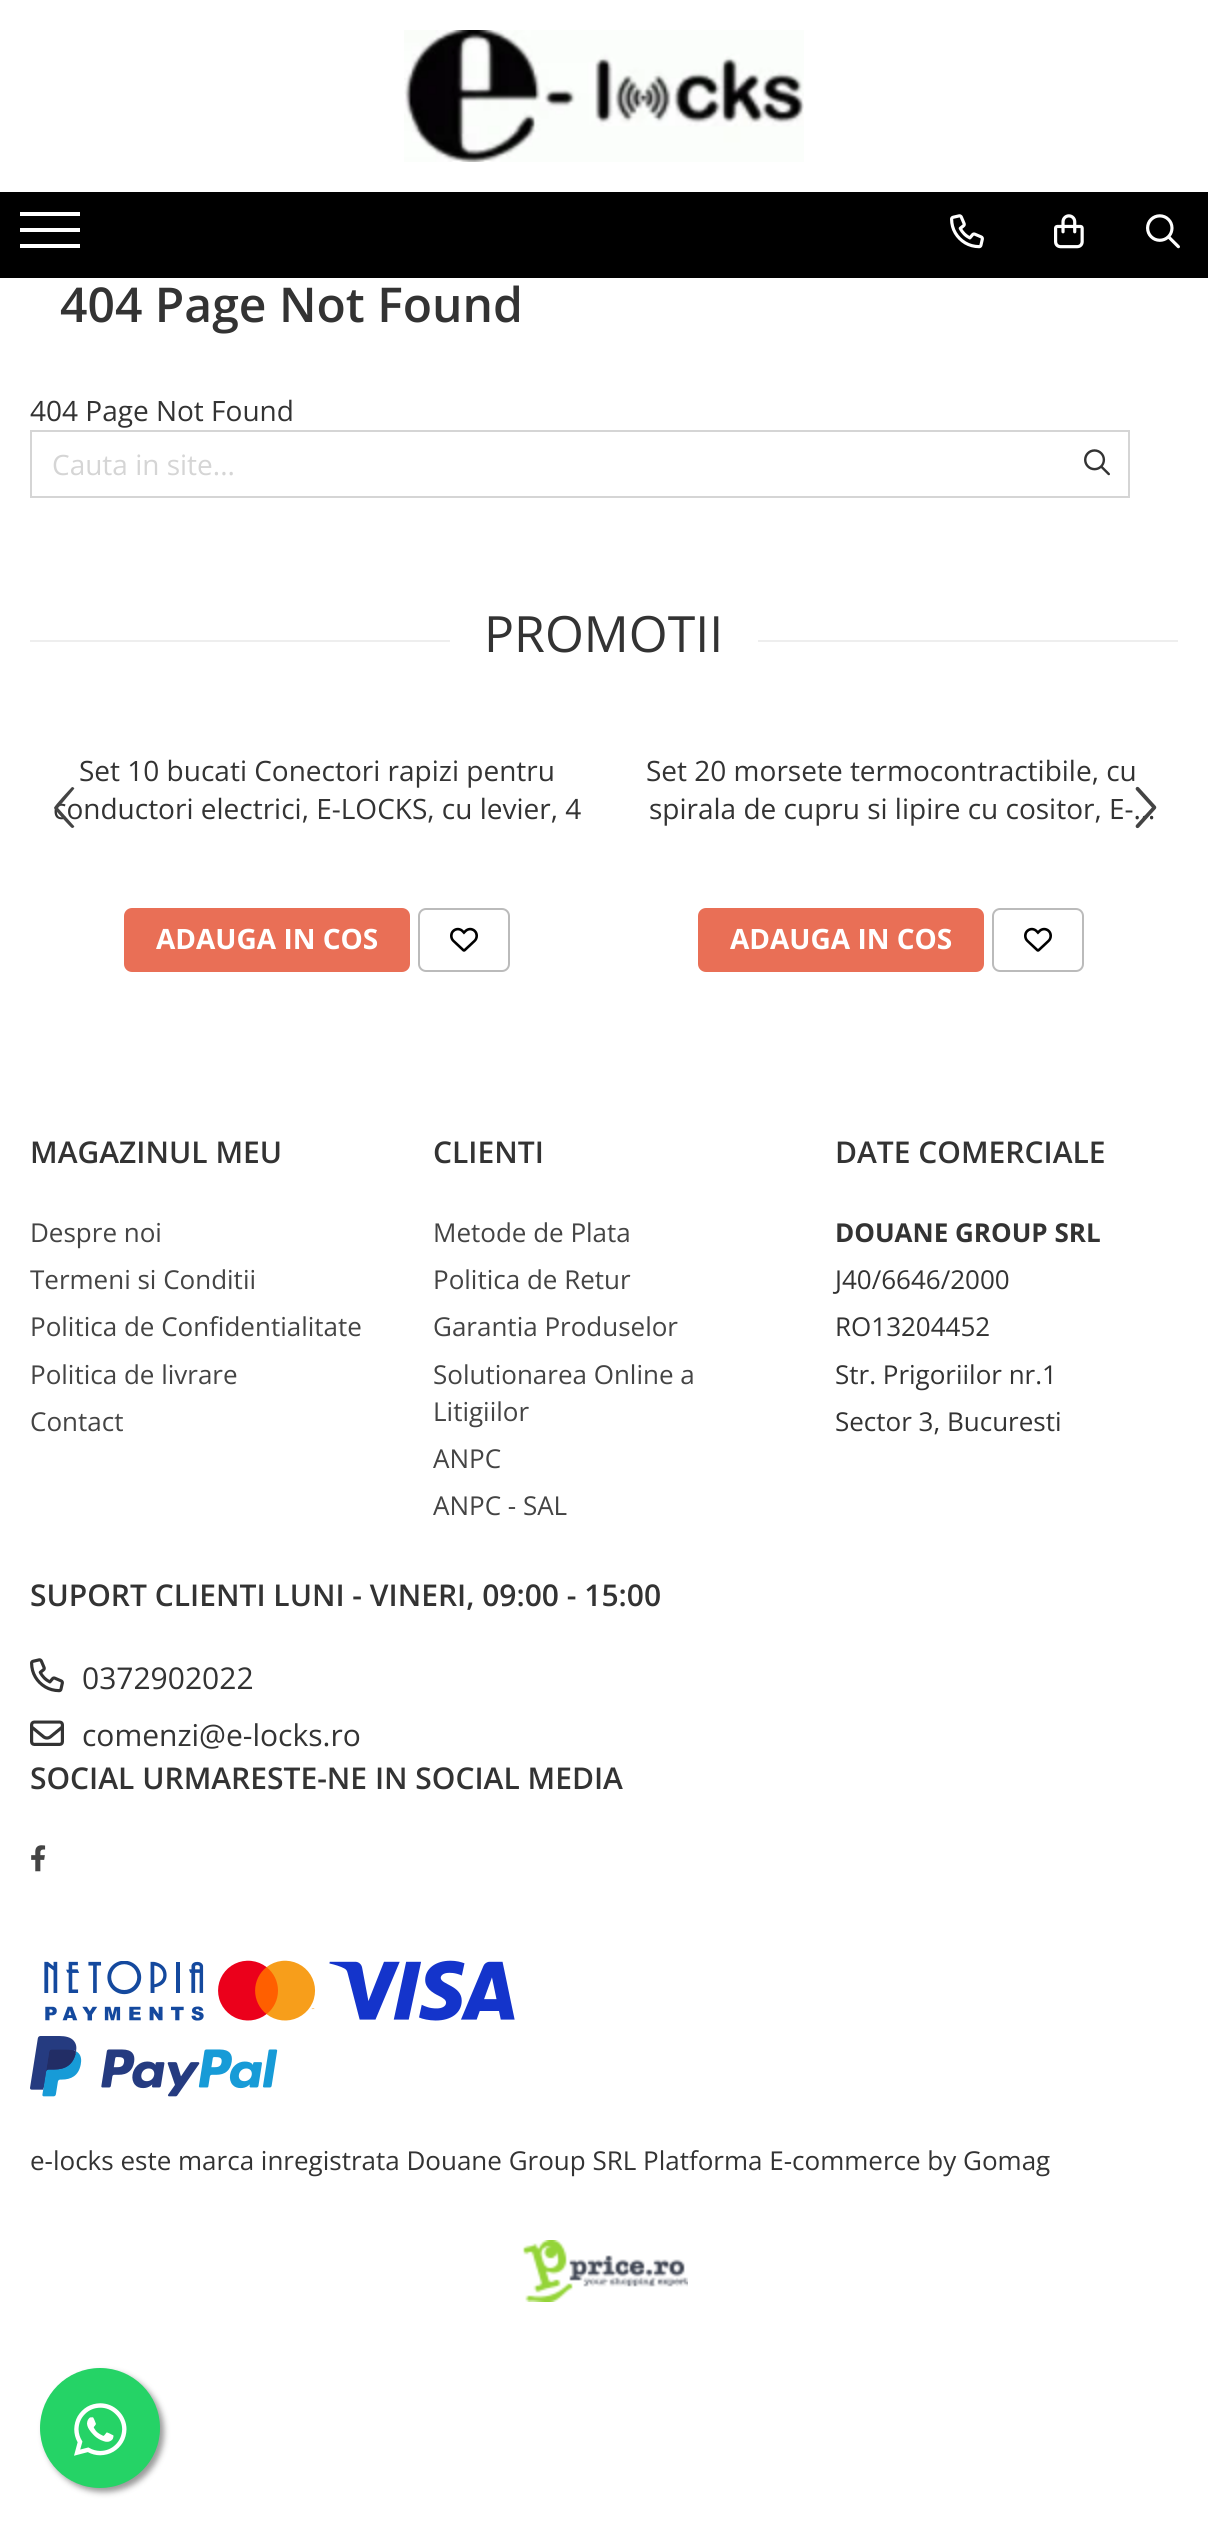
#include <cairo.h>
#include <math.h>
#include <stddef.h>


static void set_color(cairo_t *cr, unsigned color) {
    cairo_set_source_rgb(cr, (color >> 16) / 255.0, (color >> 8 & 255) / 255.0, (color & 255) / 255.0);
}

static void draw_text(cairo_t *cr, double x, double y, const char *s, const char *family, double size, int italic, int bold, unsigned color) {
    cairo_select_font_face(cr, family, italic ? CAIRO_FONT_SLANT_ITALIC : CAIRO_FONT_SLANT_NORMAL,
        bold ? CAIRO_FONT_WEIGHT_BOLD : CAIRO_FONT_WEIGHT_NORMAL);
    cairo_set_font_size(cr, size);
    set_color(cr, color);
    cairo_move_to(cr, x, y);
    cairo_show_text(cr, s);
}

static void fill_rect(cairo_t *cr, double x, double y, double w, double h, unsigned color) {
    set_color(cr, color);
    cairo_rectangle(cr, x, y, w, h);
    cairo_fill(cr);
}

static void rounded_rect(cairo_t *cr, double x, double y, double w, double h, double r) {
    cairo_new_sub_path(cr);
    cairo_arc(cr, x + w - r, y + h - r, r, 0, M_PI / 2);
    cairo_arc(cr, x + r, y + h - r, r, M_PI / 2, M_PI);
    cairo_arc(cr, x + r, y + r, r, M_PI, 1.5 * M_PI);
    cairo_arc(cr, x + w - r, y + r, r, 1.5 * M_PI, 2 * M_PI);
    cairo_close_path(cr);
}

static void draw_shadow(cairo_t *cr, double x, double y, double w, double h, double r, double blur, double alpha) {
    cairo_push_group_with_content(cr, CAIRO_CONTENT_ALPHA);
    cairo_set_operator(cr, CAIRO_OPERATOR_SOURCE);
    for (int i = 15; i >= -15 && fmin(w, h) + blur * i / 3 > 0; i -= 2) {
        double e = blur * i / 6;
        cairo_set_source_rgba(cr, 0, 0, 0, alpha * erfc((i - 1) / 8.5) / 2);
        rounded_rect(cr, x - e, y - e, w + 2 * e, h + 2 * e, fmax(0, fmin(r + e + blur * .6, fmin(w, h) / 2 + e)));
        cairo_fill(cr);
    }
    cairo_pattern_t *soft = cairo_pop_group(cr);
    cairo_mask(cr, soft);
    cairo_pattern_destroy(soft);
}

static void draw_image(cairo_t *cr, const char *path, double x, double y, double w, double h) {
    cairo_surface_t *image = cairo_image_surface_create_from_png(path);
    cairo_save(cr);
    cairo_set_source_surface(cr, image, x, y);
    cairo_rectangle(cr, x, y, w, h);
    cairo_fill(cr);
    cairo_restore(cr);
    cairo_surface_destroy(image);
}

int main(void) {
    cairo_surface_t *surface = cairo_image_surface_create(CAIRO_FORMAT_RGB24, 1208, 2528);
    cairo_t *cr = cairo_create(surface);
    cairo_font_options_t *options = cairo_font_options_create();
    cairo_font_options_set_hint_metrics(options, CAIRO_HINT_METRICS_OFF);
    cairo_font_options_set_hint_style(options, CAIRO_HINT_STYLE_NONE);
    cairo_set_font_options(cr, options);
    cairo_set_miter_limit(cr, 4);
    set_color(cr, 0xFFFFFF);
    cairo_paint(cr);
    draw_image(cr, "assets/img1.png", 404, 30, 400, 132);
    fill_rect(cr, 0, 192, 1208, 86, 0x000000);
    fill_rect(cr, 20, 228, 60, 4, 0xFFFFFF);
    fill_rect(cr, 20, 212, 60, 4, 0xFFFFFF);
    fill_rect(cr, 20, 244, 60, 4, 0xFFFFFF);
    draw_image(cr, "assets/img2.png", 950, 214, 34, 35);
    draw_image(cr, "assets/img3.png", 1054, 214, 30, 35);
    draw_image(cr, "assets/img4.png", 1146, 214, 34, 35);
    draw_text(cr, 60, 322, "404 Page Not Found", "Open Sans SemiBold", 48, 0, 0, 0x333333);
    draw_text(cr, 30, 421, "404 Page Not Found", "Open Sans", 28, 0, 0, 0x333333);
    cairo_rectangle(cr, 31, 431, 1098, 66);
    set_color(cr, 0xD5D5D5);
    cairo_stroke(cr);
    draw_text(cr, 52, 475, "Cauta in site...", "Open Sans", 28, 0, 0, 0xD5D5D5);
    draw_image(cr, "assets/img5.png", 1084, 449, 26, 27);
    fill_rect(cr, 30, 640, 1148, 2, 0xEEEEEE);
    fill_rect(cr, 450, 640, 308, 2, 0xFFFFFF);
    draw_text(cr, 484, 652, "PROMOTII", "Open Sans", 50, 0, 0, 0x333333);
    draw_text(cr, 79, 781, "Set 10 bucati Conectori rapizi pentru", "Open Sans", 28, 0, 0, 0x333333);
    draw_text(cr, 53, 819, "conductori electrici, E-LOCKS, cu levier, 4", "Open Sans", 28, 0, 0, 0x333333);
    set_color(cr, 0xE96F56);
    rounded_rect(cr, 124, 908, 286, 64, 8);
    cairo_fill(cr);
    draw_text(cr, 156, 949, "ADAUGA IN COS", "Open Sans", 28, 0, 1, 0xFFFFFF);
    rounded_rect(cr, 419, 909, 90, 62, 7);
    set_color(cr, 0xBBBBBB);
    cairo_stroke(cr);
    draw_image(cr, "assets/img6.png", 450, 927, 28, 25);
    draw_text(cr, 646, 781, "Set 20 morsete termocontractibile, cu", "Open Sans", 28, 0, 0, 0x333333);
    draw_text(cr, 649, 819, "spirala de cupru si lipire cu cositor, E-…", "Open Sans", 28, 0, 0, 0x333333);
    set_color(cr, 0xE96F56);
    rounded_rect(cr, 698, 908, 286, 64, 8);
    cairo_fill(cr);
    draw_text(cr, 730, 949, "ADAUGA IN COS", "Open Sans", 28, 0, 1, 0xFFFFFF);
    rounded_rect(cr, 993, 909, 90, 62, 7);
    set_color(cr, 0xBBBBBB);
    cairo_stroke(cr);
    draw_image(cr, "assets/img6.png", 1024, 927, 28, 25);
    set_color(cr, 0x444444);
    cairo_new_path(cr);
    cairo_move_to(cr, 58, 808);
    cairo_line_to(cr, 74, 789);
    cairo_curve_to(cr, 75, 788, 73, 787, 72, 787);
    cairo_curve_to(cr, 71, 788, 54, 806, 54, 808);
    cairo_curve_to(cr, 54, 809, 71, 828, 72, 828);
    cairo_curve_to(cr, 73, 828, 75, 827, 74, 826);
    cairo_close_path(cr);
    cairo_fill(cr);
    draw_image(cr, "assets/img7.png", 1135, 786, 22, 43);
    draw_text(cr, 30, 1163, "MAGAZINUL MEU", "Open Sans SemiBold", 30, 0, 0, 0x333333);
    draw_text(cr, 30, 1242, "Despre noi", "Open Sans", 26, 0, 0, 0x444444);
    draw_text(cr, 30, 1289, "Termeni si Conditii", "Open Sans", 26, 0, 0, 0x444444);
    draw_text(cr, 30, 1336, "Politica de Confidentialitate", "Open Sans", 26, 0, 0, 0x444444);
    draw_text(cr, 30, 1384, "Politica de livrare", "Open Sans", 26, 0, 0, 0x444444);
    draw_text(cr, 30, 1431, "Contact", "Open Sans", 26, 0, 0, 0x444444);
    draw_text(cr, 433, 1163, "CLIENTI", "Open Sans SemiBold", 30, 0, 0, 0x333333);
    draw_text(cr, 433, 1242, "Metode de Plata", "Open Sans", 26, 0, 0, 0x444444);
    draw_text(cr, 433, 1289, "Politica de Retur", "Open Sans", 26, 0, 0, 0x444444);
    draw_text(cr, 433, 1336, "Garantia Produselor", "Open Sans", 26, 0, 0, 0x444444);
    draw_text(cr, 433, 1384, "Solutionarea Online a", "Open Sans", 26, 0, 0, 0x444444);
    draw_text(cr, 433, 1421, "Litigiilor", "Open Sans", 26, 0, 0, 0x444444);
    draw_text(cr, 433, 1468, "ANPC", "Open Sans", 26, 0, 0, 0x444444);
    draw_text(cr, 433, 1515, "ANPC - SAL", "Open Sans", 26, 0, 0, 0x444444);
    draw_text(cr, 835, 1163, "DATE COMERCIALE", "Open Sans SemiBold", 30, 0, 0, 0x333333);
    draw_text(cr, 835, 1242, "DOUANE GROUP SRL", "Open Sans", 26, 0, 1, 0x333333);
    draw_text(cr, 835, 1289, "J40/6646/2000", "Open Sans", 26, 0, 0, 0x333333);
    draw_text(cr, 835, 1336, "RO13204452", "Open Sans", 26, 0, 0, 0x333333);
    draw_text(cr, 835, 1384, "Str. Prigoriilor nr.1", "Open Sans", 26, 0, 0, 0x333333);
    draw_text(cr, 835, 1431, "Sector 3, Bucuresti", "Open Sans", 26, 0, 0, 0x333333);
    draw_text(cr, 30, 1606, "SUPORT CLIENTI LUNI - VINERI, 09:00 - 15:00", "Open Sans SemiBold", 30, 0, 0, 0x333333);
    draw_image(cr, "assets/img8.png", 30, 1658, 34, 35);
    draw_text(cr, 82, 1689, "0372902022", "Open Sans", 30, 0, 0, 0x333333);
    draw_image(cr, "assets/img9.png", 30, 1720, 34, 26);
    draw_text(cr, 82, 1746, "comenzi@e-locks.ro", "Open Sans", 30, 0, 0, 0x333333);
    draw_text(cr, 30, 1789, "SOCIAL URMARESTE-NE IN SOCIAL MEDIA", "Open Sans SemiBold", 30, 0, 0, 0x333333);
    draw_image(cr, "assets/img10.png", 31, 1845, 15, 27);
    draw_image(cr, "assets/img11.png", 44, 1960, 471, 61);
    draw_image(cr, "assets/img12.png", 30, 2036, 248, 61);
    draw_text(cr, 30, 2170, "e-locks este marca inregistrata Douane Group SRL Platforma E-commerce by Gomag", "Open Sans", 26, 0, 0, 0x333333);
    draw_image(cr, "assets/img13.png", 522, 2240, 166, 62);
    set_color(cr, 0x999999);
    draw_shadow(cr, 44, 2372, 120, 120, 60, 3, 1);
    set_color(cr, 0x25D366);
    cairo_arc(cr, 100, 2428, 60, 0, 2 * M_PI);
    cairo_fill(cr);
    draw_image(cr, "assets/img14.png", 74, 2403, 53, 53);
    cairo_surface_write_to_png(surface, "output.png");
    cairo_font_options_destroy(options);
    cairo_destroy(cr);
    cairo_surface_destroy(surface);
    return 0;
}
